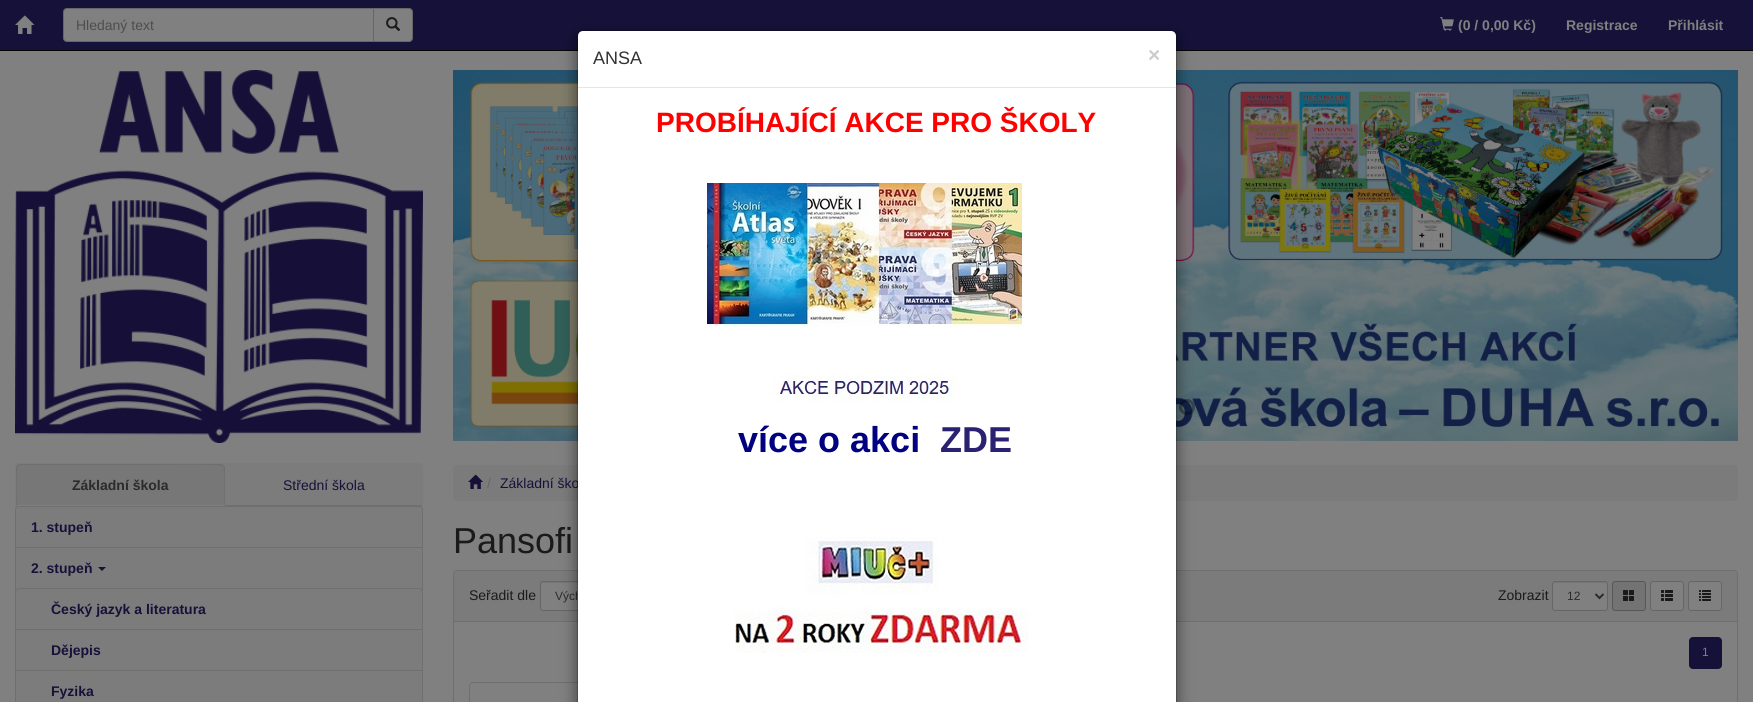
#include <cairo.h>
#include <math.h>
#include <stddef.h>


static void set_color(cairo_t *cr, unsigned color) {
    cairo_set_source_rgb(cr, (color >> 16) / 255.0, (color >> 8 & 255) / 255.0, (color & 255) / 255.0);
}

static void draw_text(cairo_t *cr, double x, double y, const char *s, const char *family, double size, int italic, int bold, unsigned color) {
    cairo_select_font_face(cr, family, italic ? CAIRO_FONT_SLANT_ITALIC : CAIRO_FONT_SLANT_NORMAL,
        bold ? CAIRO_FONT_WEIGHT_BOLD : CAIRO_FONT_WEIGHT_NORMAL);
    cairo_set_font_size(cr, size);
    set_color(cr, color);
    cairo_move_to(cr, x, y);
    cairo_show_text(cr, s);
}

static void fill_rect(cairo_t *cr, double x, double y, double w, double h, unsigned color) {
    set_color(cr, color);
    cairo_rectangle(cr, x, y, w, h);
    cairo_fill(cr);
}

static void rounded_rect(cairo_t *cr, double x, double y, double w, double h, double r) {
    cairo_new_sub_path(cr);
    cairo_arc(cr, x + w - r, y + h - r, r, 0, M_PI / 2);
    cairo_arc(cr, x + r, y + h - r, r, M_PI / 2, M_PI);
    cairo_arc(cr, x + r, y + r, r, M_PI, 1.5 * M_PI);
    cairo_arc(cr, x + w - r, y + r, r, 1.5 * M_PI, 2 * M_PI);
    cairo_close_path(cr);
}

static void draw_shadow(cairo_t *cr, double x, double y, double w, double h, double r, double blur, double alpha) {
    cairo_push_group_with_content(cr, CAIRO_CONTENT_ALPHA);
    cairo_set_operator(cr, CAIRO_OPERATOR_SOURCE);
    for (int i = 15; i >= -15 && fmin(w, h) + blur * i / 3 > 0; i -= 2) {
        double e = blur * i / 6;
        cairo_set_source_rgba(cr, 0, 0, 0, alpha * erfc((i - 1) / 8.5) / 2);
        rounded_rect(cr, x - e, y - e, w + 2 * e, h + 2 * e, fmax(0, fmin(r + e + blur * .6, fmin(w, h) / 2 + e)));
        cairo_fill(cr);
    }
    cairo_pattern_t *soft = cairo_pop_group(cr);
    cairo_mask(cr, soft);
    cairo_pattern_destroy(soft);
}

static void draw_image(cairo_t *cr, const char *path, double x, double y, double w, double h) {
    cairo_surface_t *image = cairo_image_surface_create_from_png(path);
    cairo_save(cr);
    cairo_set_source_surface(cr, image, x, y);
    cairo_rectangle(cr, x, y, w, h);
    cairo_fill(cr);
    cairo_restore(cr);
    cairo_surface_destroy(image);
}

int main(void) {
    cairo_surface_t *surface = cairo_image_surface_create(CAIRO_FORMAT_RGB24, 1753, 702);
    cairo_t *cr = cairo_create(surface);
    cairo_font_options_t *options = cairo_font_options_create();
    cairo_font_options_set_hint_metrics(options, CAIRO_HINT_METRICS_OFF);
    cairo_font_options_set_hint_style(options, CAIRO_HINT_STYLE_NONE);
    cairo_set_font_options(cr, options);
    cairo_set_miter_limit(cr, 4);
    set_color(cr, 0x808080);
    cairo_paint(cr);
    fill_rect(cr, 0, 0, 1753, 50, 0x161139);
    fill_rect(cr, 0, 50, 1753, 1, 0x040404);
    draw_image(cr, "assets/img1.png", 15, 15, 20, 19);
    set_color(cr, 0x808080);
    cairo_new_path(cr);
    cairo_move_to(cr, 373.5, 8.5);
    cairo_line_to(cr, 409, 8.5);
    cairo_curve_to(cr, 411, 8.5, 412.5, 10, 412.5, 12);
    cairo_line_to(cr, 412.5, 38);
    cairo_curve_to(cr, 412.5, 40, 411, 41.5, 409, 41.5);
    cairo_line_to(cr, 373.5, 41.5);
    cairo_close_path(cr);
    cairo_fill_preserve(cr);
    set_color(cr, 0x666666);
    cairo_set_line_width(cr, 1);
    cairo_stroke(cr);
    set_color(cr, 0x808080);
    cairo_new_path(cr);
    cairo_move_to(cr, 67, 8.5);
    cairo_line_to(cr, 373.5, 8.5);
    cairo_line_to(cr, 373.5, 41.5);
    cairo_line_to(cr, 67, 41.5);
    cairo_curve_to(cr, 65, 41.5, 63.5, 40, 63.5, 38);
    cairo_line_to(cr, 63.5, 12);
    cairo_curve_to(cr, 63.5, 10, 65, 8.5, 67, 8.5);
    cairo_close_path(cr);
    cairo_fill_preserve(cr);
    set_color(cr, 0x666666);
    cairo_stroke(cr);
    draw_text(cr, 76, 30, "Hledaný text", "Liberation Sans", 14, 0, 0, 0x4D4D4D);
    draw_image(cr, "assets/img2.png", 386, 17, 15, 14);
    draw_image(cr, "assets/img3.png", 1440, 17, 14, 14);
    draw_text(cr, 1458, 30, "(0 / 0,00 Kč)", "Liberation Sans", 14, 0, 1, 0x808080);
    draw_text(cr, 1566, 30, "Registrace", "Liberation Sans", 14, 0, 1, 0x808080);
    draw_text(cr, 1668, 30, "Přihlásit", "Liberation Sans", 14, 0, 1, 0x808080);
    draw_image(cr, "assets/img4.png", 15, 70, 408, 373);
    set_color(cr, 0x7C7C7C);
    rounded_rect(cr, 15, 463, 408, 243, 4);
    cairo_fill(cr);
    set_color(cr, 0x777777);
    cairo_new_path(cr);
    cairo_move_to(cr, 20, 464);
    cairo_line_to(cr, 221, 464);
    cairo_curve_to(cr, 223, 464, 225, 466, 225, 468);
    cairo_line_to(cr, 225, 506);
    cairo_line_to(cr, 16, 506);
    cairo_line_to(cr, 16, 468);
    cairo_curve_to(cr, 16, 466, 18, 464, 20, 464);
    cairo_close_path(cr);
    cairo_fill(cr);
    set_color(cr, 0x6F6F6F);
    cairo_new_path(cr);
    cairo_move_to(cr, 20, 464);
    cairo_line_to(cr, 17, 465);
    cairo_line_to(cr, 18, 466);
    cairo_line_to(cr, 20, 465);
    cairo_line_to(cr, 154, 465);
    cairo_curve_to(cr, 158, 465, 221, 464, 223, 466);
    cairo_line_to(cr, 224, 465);
    cairo_line_to(cr, 221, 464);
    cairo_close_path(cr);
    cairo_fill(cr);
    cairo_new_path(cr);
    cairo_move_to(cr, 225, 506);
    cairo_line_to(cr, 225, 468);
    cairo_curve_to(cr, 225, 467, 224, 466, 224, 465);
    cairo_line_to(cr, 223, 466);
    cairo_curve_to(cr, 225, 468, 224, 500, 224, 505);
    cairo_close_path(cr);
    cairo_fill(cr);
    set_color(cr, 0x808080);
    cairo_new_path(cr);
    cairo_move_to(cr, 225, 506);
    cairo_line_to(cr, 224, 505);
    cairo_line_to(cr, 17, 505);
    cairo_line_to(cr, 16, 506);
    cairo_close_path(cr);
    cairo_fill(cr);
    set_color(cr, 0x6F6F6F);
    cairo_new_path(cr);
    cairo_move_to(cr, 16, 506);
    cairo_line_to(cr, 17, 505);
    cairo_curve_to(cr, 17, 500, 16, 468, 18, 466);
    cairo_line_to(cr, 17, 465);
    cairo_line_to(cr, 16, 468);
    cairo_close_path(cr);
    cairo_fill(cr);
    draw_text(cr, 72, 490, "Základní škola", "Liberation Sans", 14, 0, 1, 0x2B2B2B);
    set_color(cr, 0x6F6F6F);
    cairo_new_path(cr);
    cairo_move_to(cr, 422, 506);
    cairo_line_to(cr, 421, 505);
    cairo_line_to(cr, 226, 505);
    cairo_line_to(cr, 225, 506);
    cairo_close_path(cr);
    cairo_fill(cr);
    draw_text(cr, 283, 490, "Střední škola", "Liberation Sans", 14, 0, 0, 0x161139);
    cairo_new_path(cr);
    cairo_move_to(cr, 19, 506.5);
    cairo_line_to(cr, 419, 506.5);
    cairo_curve_to(cr, 421, 506.5, 422.5, 508, 422.5, 510);
    cairo_line_to(cr, 422.5, 547.5);
    cairo_line_to(cr, 15.5, 547.5);
    cairo_line_to(cr, 15.5, 510);
    cairo_curve_to(cr, 15.5, 508, 17, 506.5, 19, 506.5);
    cairo_close_path(cr);
    set_color(cr, 0x6F6F6F);
    cairo_stroke(cr);
    draw_text(cr, 31, 532, "1. stupeň", "Liberation Sans", 14, 0, 1, 0x161139);
    cairo_rectangle(cr, 15.5, 547.5, 407, 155);
    set_color(cr, 0x6F6F6F);
    cairo_stroke(cr);
    draw_text(cr, 31, 573, "2. stupeň", "Liberation Sans", 14, 0, 1, 0x161139);
    cairo_new_path(cr);
    cairo_move_to(cr, 98, 567);
    cairo_line_to(cr, 106, 567);
    cairo_line_to(cr, 102, 571);
    cairo_close_path(cr);
    cairo_fill(cr);
    cairo_save(cr);
    cairo_rectangle(cr, 16, 548, 406, 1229);
    cairo_clip(cr);
    cairo_new_path(cr);
    cairo_move_to(cr, 19, 588.5);
    cairo_line_to(cr, 419, 588.5);
    cairo_curve_to(cr, 421, 588.5, 422.5, 590, 422.5, 592);
    cairo_line_to(cr, 422.5, 629.5);
    cairo_line_to(cr, 15.5, 629.5);
    cairo_line_to(cr, 15.5, 592);
    cairo_curve_to(cr, 15.5, 590, 17, 588.5, 19, 588.5);
    cairo_close_path(cr);
    set_color(cr, 0x6F6F6F);
    cairo_stroke(cr);
    cairo_restore(cr);
    draw_text(cr, 51, 614, "Český jazyk a literatura", "Liberation Sans", 14, 0, 1, 0x161139);
    cairo_save(cr);
    cairo_rectangle(cr, 16, 548, 406, 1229);
    cairo_clip(cr);
    cairo_rectangle(cr, 15.5, 629.5, 407, 41);
    set_color(cr, 0x6F6F6F);
    cairo_stroke(cr);
    cairo_restore(cr);
    draw_text(cr, 51, 655, "Dějepis", "Liberation Sans", 14, 0, 1, 0x161139);
    draw_text(cr, 51, 696, "Fyzika", "Liberation Sans", 14, 0, 1, 0x161139);
    draw_image(cr, "assets/img5.png", 453, 70, 1285, 371);
    cairo_arc(cr, 1187, 407, 6.5, 0, 2 * M_PI);
    cairo_set_source_rgba(cr, 0, 0, 0, 0.35);
    cairo_set_line_width(cr, 3);
    cairo_stroke(cr);
    set_color(cr, 0x7B7B7B);
    rounded_rect(cr, 453, 465, 1285, 36, 4);
    cairo_fill(cr);
    draw_image(cr, "assets/img6.png", 468, 474, 15, 15);
    draw_text(cr, 487, 488, "/", "Liberation Sans", 14, 0, 0, 0x666666);
    draw_text(cr, 500, 488, "Základní ško", "Liberation Sans", 14, 0, 0, 0x161139);
    draw_text(cr, 453, 553, "Pansofi", "Liberation Sans", 36, 0, 0, 0x1A1A1A);
    rounded_rect(cr, 453.5, 570.5, 1284, 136, 3.5);
    set_color(cr, 0x6F6F6F);
    cairo_set_line_width(cr, 1);
    cairo_stroke(cr);
    set_color(cr, 0x7B7B7B);
    cairo_new_path(cr);
    cairo_move_to(cr, 457, 571);
    cairo_line_to(cr, 1734, 571);
    cairo_curve_to(cr, 1735.5, 571, 1737, 572.5, 1737, 574);
    cairo_line_to(cr, 1737, 622);
    cairo_line_to(cr, 454, 622);
    cairo_line_to(cr, 454, 574);
    cairo_curve_to(cr, 454, 572.5, 455.5, 571, 457, 571);
    cairo_close_path(cr);
    cairo_fill(cr);
    fill_rect(cr, 454, 621, 1283, 1, 0x6F6F6F);
    draw_text(cr, 469, 600, "Seřadit dle", "Liberation Sans", 14, 0, 0, 0x1A1A1A);
    set_color(cr, 0x808080);
    rounded_rect(cr, 540, 581, 116, 30, 3);
    cairo_fill(cr);
    set_color(cr, 0x767676);
    cairo_new_path(cr);
    cairo_move_to(cr, 543, 583);
    cairo_line_to(cr, 653, 583);
    cairo_curve_to(cr, 654, 583, 655, 584, 655, 585);
    cairo_curve_to(cr, 655, 584, 655, 582, 653, 582);
    cairo_line_to(cr, 543, 582);
    cairo_curve_to(cr, 541, 582, 541, 584, 541, 585);
    cairo_curve_to(cr, 541, 584, 542, 583, 543, 583);
    cairo_close_path(cr);
    cairo_fill(cr);
    rounded_rect(cr, 540.5, 581.5, 115, 29, 2.5);
    set_color(cr, 0x666666);
    cairo_stroke(cr);
    draw_text(cr, 555, 600, "Vých", "Liberation Sans", 12, 0, 0, 0x2B2B2B);
    draw_text(cr, 1498, 600, "Zobrazit", "Liberation Sans", 14, 0, 0, 0x1A1A1A);
    set_color(cr, 0x808080);
    rounded_rect(cr, 1552, 581, 56, 30, 3);
    cairo_fill(cr);
    set_color(cr, 0x767676);
    cairo_new_path(cr);
    cairo_move_to(cr, 1555, 583);
    cairo_line_to(cr, 1605, 583);
    cairo_curve_to(cr, 1606, 583, 1607, 584, 1607, 585);
    cairo_curve_to(cr, 1607, 580, 1601, 582, 1597, 582);
    cairo_line_to(cr, 1563, 582);
    cairo_curve_to(cr, 1559, 582, 1553, 580, 1553, 585);
    cairo_curve_to(cr, 1553, 584, 1554, 583, 1555, 583);
    cairo_close_path(cr);
    cairo_fill(cr);
    rounded_rect(cr, 1552.5, 581.5, 55, 29, 2.5);
    set_color(cr, 0x666666);
    cairo_stroke(cr);
    cairo_new_path(cr);
    cairo_move_to(cr, 1595.5, 594);
    cairo_line_to(cr, 1599.5, 598);
    cairo_line_to(cr, 1603.5, 594);
    set_color(cr, 0x2B2B2B);
    cairo_set_line_width(cr, 2);
    cairo_stroke(cr);
    draw_text(cr, 1567, 600, "12", "Liberation Sans", 12, 0, 0, 0x2B2B2B);
    set_color(cr, 0x737373);
    rounded_rect(cr, 1612.5, 581.5, 33, 29, 2.5);
    cairo_fill_preserve(cr);
    set_color(cr, 0x575757);
    cairo_set_line_width(cr, 1);
    cairo_stroke(cr);
    draw_image(cr, "assets/img7.png", 1623, 590, 11, 11);
    set_color(cr, 0x808080);
    rounded_rect(cr, 1650.5, 581.5, 33, 29, 2.5);
    cairo_fill_preserve(cr);
    set_color(cr, 0x666666);
    cairo_stroke(cr);
    draw_image(cr, "assets/img8.png", 1661, 590, 12, 11);
    set_color(cr, 0x808080);
    rounded_rect(cr, 1688.5, 581.5, 33, 29, 2.5);
    cairo_fill_preserve(cr);
    set_color(cr, 0x666666);
    cairo_stroke(cr);
    draw_image(cr, "assets/img9.png", 1699, 590, 12, 11);
    set_color(cr, 0x161139);
    rounded_rect(cr, 1689.5, 637.5, 32, 31, 3.5);
    cairo_fill_preserve(cr);
    cairo_stroke(cr);
    draw_text(cr, 1702, 656, "1", "Liberation Sans", 12, 0, 0, 0x808080);
    rounded_rect(cr, 469.5, 682.5, 290, 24, 3.5);
    set_color(cr, 0x6F6F6F);
    cairo_stroke(cr);
    set_color(cr, 0x000000);
    draw_shadow(cr, 577, 35, 600, 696, 6, 7.5, 0.5);
    set_color(cr, 0xFFFFFF);
    cairo_new_path(cr);
    cairo_move_to(cr, 583, 31);
    cairo_line_to(cr, 1171, 31);
    cairo_curve_to(cr, 1174, 31, 1176, 33, 1176, 36);
    cairo_line_to(cr, 1176, 702);
    cairo_line_to(cr, 578, 702);
    cairo_line_to(cr, 578, 36);
    cairo_curve_to(cr, 578, 33, 580, 31, 583, 31);
    cairo_close_path(cr);
    cairo_fill(cr);
    rounded_rect(cr, 577.5, 30.5, 599, 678, 5.5);
    cairo_set_source_rgba(cr, 0, 0, 0, 0.2);
    cairo_stroke(cr);
    fill_rect(cr, 578, 87, 598, 1, 0xE5E5E5);
    draw_text(cr, 593, 64, "ANSA", "Liberation Sans", 18, 0, 0, 0x333333);
    draw_text(cr, 1148, 62, "×", "Liberation Sans", 21, 0, 1, 0xCCCCCC);
    draw_text(cr, 656, 132, "PROBÍHAJÍCÍ AKCE PRO ŠKOLY", "Liberation Sans", 28, 0, 1, 0xFF0000);
    draw_image(cr, "assets/img10.png", 707, 183, 315, 221);
    draw_text(cr, 738, 452, "více o akci", "Liberation Sans", 36, 0, 1, 0x000080);
    draw_text(cr, 940, 452, "ZDE", "Liberation Sans", 36, 0, 1, 0x2B2171);
    draw_image(cr, "assets/img11.png", 735, 537, 294, 116);
    cairo_surface_write_to_png(surface, "output.png");
    cairo_font_options_destroy(options);
    cairo_destroy(cr);
    cairo_surface_destroy(surface);
    return 0;
}
